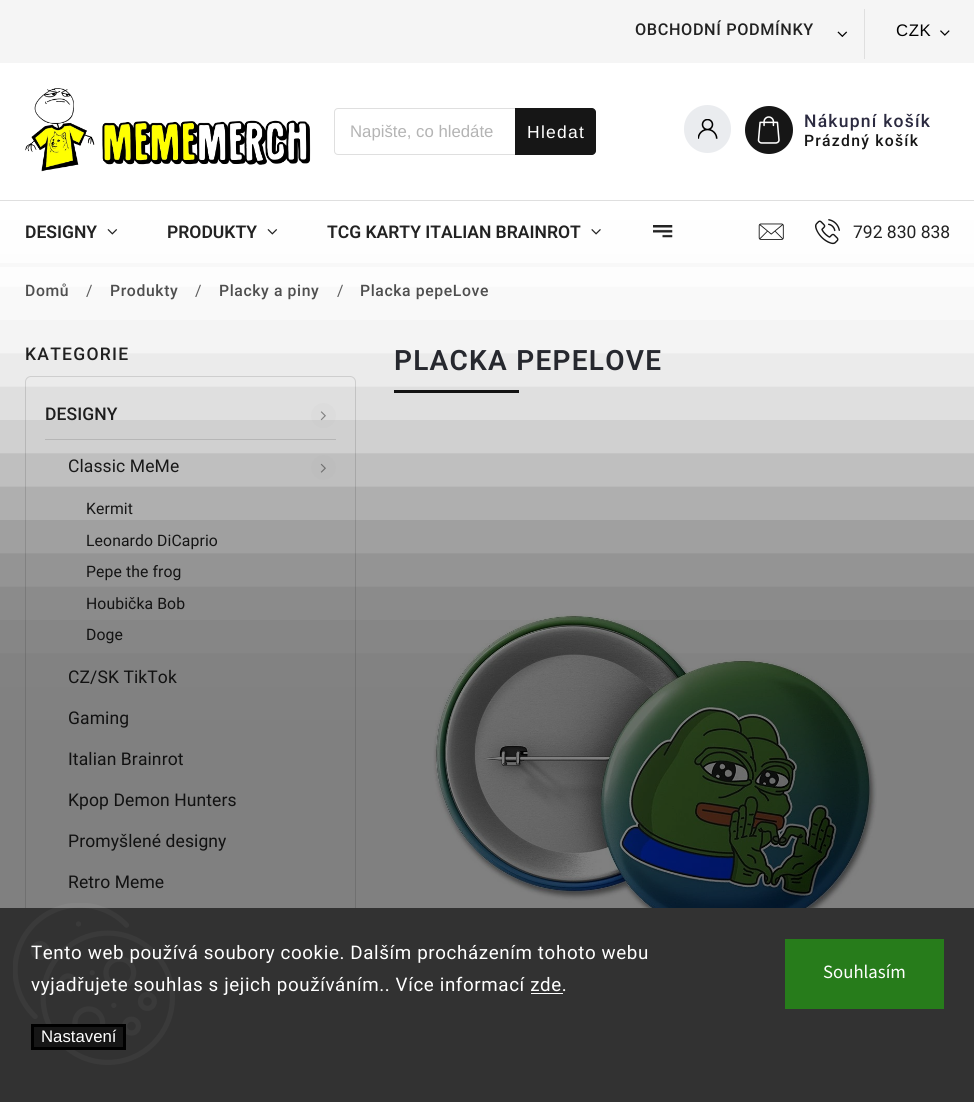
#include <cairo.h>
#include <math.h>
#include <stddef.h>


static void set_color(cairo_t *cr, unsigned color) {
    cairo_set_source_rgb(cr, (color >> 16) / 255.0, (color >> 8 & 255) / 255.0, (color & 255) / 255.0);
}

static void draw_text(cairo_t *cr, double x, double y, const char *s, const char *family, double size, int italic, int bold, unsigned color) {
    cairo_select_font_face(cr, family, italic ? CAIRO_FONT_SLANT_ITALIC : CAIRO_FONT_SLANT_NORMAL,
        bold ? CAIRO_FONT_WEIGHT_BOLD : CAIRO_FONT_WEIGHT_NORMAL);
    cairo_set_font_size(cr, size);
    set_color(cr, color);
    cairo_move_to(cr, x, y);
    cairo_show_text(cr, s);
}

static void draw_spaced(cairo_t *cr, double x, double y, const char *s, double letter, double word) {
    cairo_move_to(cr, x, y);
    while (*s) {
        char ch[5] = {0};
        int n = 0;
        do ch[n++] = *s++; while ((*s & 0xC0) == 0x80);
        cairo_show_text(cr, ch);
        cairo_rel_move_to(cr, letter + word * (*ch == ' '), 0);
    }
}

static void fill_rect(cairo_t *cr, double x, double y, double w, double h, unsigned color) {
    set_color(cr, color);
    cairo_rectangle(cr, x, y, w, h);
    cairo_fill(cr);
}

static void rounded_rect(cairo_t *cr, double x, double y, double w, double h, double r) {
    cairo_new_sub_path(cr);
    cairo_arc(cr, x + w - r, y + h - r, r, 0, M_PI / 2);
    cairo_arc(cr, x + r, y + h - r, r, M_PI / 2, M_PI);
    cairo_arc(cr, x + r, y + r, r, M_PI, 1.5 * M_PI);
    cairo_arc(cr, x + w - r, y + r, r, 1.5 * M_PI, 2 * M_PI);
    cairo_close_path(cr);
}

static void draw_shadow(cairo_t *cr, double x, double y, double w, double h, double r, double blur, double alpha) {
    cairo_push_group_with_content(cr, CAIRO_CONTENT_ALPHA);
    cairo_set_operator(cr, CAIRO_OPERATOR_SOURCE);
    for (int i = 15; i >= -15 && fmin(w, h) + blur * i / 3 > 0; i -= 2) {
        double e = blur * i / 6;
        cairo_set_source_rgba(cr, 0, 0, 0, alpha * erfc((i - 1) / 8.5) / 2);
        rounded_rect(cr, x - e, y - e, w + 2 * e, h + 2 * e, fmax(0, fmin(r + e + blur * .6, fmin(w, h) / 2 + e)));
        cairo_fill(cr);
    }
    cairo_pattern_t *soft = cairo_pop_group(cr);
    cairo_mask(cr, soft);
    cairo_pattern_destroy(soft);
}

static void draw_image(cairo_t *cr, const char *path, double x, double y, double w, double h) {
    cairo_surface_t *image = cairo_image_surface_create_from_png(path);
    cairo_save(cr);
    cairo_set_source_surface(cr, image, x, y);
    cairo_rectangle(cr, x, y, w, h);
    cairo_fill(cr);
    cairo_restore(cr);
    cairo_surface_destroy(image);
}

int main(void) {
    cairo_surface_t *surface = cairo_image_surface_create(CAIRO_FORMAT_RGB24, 974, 1102);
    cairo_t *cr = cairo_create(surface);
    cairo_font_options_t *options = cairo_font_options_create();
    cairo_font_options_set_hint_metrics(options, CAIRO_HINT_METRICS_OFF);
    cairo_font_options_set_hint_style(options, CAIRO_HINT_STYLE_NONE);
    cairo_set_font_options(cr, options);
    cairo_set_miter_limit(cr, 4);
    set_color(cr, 0xFFFFFF);
    cairo_paint(cr);
    fill_rect(cr, 0, 0, 974, 63, 0xF5F5F5);
    cairo_select_font_face(cr, "Roboto Medium", CAIRO_FONT_SLANT_NORMAL, CAIRO_FONT_WEIGHT_NORMAL);
    cairo_set_font_size(cr, 16.25);
    set_color(cr, 0x222222);
    draw_spaced(cr, 635, 35, "OBCHODNÍ PODMÍNKY", 0.62, 0);
    draw_image(cr, "assets/img1.png", 837, 31, 11, 6);
    fill_rect(cr, 864, 9, 1, 50, 0xDFDFDF);
    cairo_select_font_face(cr, "Liberation Sans", CAIRO_FONT_SLANT_NORMAL, CAIRO_FONT_WEIGHT_NORMAL);
    cairo_set_font_size(cr, 16.75);
    set_color(cr, 0x000000);
    draw_spaced(cr, 896, 36, "CZK", 0.62, 0);
    draw_image(cr, "assets/img2.png", 940, 30, 10, 6);
    fill_rect(cr, 0, 200, 974, 1, 0xDFDFDF);
    draw_image(cr, "assets/img3.png", 25, 88, 286, 84);
    cairo_new_path(cr);
    cairo_move_to(cr, 338, 108.5);
    cairo_line_to(cr, 515.5, 108.5);
    cairo_line_to(cr, 515.5, 154.5);
    cairo_line_to(cr, 338, 154.5);
    cairo_curve_to(cr, 336, 154.5, 334.5, 153, 334.5, 151);
    cairo_line_to(cr, 334.5, 112);
    cairo_curve_to(cr, 334.5, 110, 336, 108.5, 338, 108.5);
    cairo_close_path(cr);
    cairo_set_line_width(cr, 1);
    cairo_stroke(cr);
    draw_text(cr, 350, 137, "Napište, co hledáte", "Liberation Sans", 16.75, 0, 0, 0xB4B4B4);
    set_color(cr, 0x161616);
    cairo_new_path(cr);
    cairo_move_to(cr, 515, 108);
    cairo_line_to(cr, 592, 108);
    cairo_curve_to(cr, 594, 108, 596, 110, 596, 112);
    cairo_line_to(cr, 596, 151);
    cairo_curve_to(cr, 596, 153, 594, 155, 592, 155);
    cairo_line_to(cr, 515, 155);
    cairo_close_path(cr);
    cairo_fill(cr);
    cairo_set_font_size(cr, 17.5);
    set_color(cr, 0xFFFFFF);
    draw_spaced(cr, 527, 138, "Hledat", 1.25, 0);
    set_color(cr, 0xEAECEF);
    rounded_rect(cr, 684, 105, 47, 48, 23.5);
    cairo_fill(cr);
    draw_image(cr, "assets/img4.png", 698, 119, 20, 20);
    set_color(cr, 0x161616);
    cairo_arc(cr, 769, 130, 24, 0, 2 * M_PI);
    cairo_fill(cr);
    draw_image(cr, "assets/img5.png", 757, 116, 23, 28);
    cairo_select_font_face(cr, "Roboto Medium", CAIRO_FONT_SLANT_NORMAL, CAIRO_FONT_WEIGHT_NORMAL);
    set_color(cr, 0x2B2A40);
    draw_spaced(cr, 804, 127, "Nákupní košík", 1.25, 0);
    cairo_set_font_size(cr, 15.75);
    set_color(cr, 0x161616);
    draw_spaced(cr, 804, 146, "Prázdný košík", 1.25, 0);
    draw_text(cr, 25, 238, "DESIGNY", "Roboto SemiBold", 17.5, 0, 0, 0x222222);
    draw_image(cr, "assets/img6.png", 107, 229, 11, 6);
    draw_text(cr, 167, 238, "PRODUKTY", "Roboto SemiBold", 17.5, 0, 0, 0x222222);
    draw_image(cr, "assets/img6.png", 267, 229, 11, 6);
    draw_text(cr, 327, 238, "TCG KARTY ITALIAN BRAINROT", "Roboto SemiBold", 17.5, 0, 0, 0x222222);
    draw_image(cr, "assets/img7.png", 591, 229, 10, 6);
    draw_image(cr, "assets/img8.png", 653, 225, 20, 13);
    draw_image(cr, "assets/img9.png", 758, 223, 26, 17);
    draw_image(cr, "assets/img10.png", 815, 219, 25, 26);
    draw_text(cr, 853, 238, "792 830 838", "Roboto", 17.5, 0, 0, 0x222222);
    fill_rect(cr, 0, 263, 974, 4, 0xFAFAFA);
    cairo_select_font_face(cr, "Roboto Medium", CAIRO_FONT_SLANT_NORMAL, CAIRO_FONT_WEIGHT_NORMAL);
    cairo_set_font_size(cr, 15.75);
    set_color(cr, 0x505050);
    draw_spaced(cr, 25, 296, "Domů", 0.62, 0);
    cairo_select_font_face(cr, "Roboto", CAIRO_FONT_SLANT_NORMAL, CAIRO_FONT_WEIGHT_NORMAL);
    set_color(cr, 0x606060);
    draw_spaced(cr, 86, 296, "/", 0.62, 0);
    cairo_select_font_face(cr, "Roboto Medium", CAIRO_FONT_SLANT_NORMAL, CAIRO_FONT_WEIGHT_NORMAL);
    set_color(cr, 0x505050);
    draw_spaced(cr, 110, 296, "Produkty", 0.62, 0);
    cairo_select_font_face(cr, "Roboto", CAIRO_FONT_SLANT_NORMAL, CAIRO_FONT_WEIGHT_NORMAL);
    set_color(cr, 0x606060);
    draw_spaced(cr, 195, 296, "/", 0.62, 0);
    cairo_select_font_face(cr, "Roboto Medium", CAIRO_FONT_SLANT_NORMAL, CAIRO_FONT_WEIGHT_NORMAL);
    set_color(cr, 0x505050);
    draw_spaced(cr, 219, 296, "Placky a piny", 0.62, 0);
    cairo_select_font_face(cr, "Roboto", CAIRO_FONT_SLANT_NORMAL, CAIRO_FONT_WEIGHT_NORMAL);
    set_color(cr, 0x606060);
    draw_spaced(cr, 337, 296, "/", 0.62, 0);
    cairo_select_font_face(cr, "Roboto Medium", CAIRO_FONT_SLANT_NORMAL, CAIRO_FONT_WEIGHT_NORMAL);
    set_color(cr, 0x505050);
    draw_spaced(cr, 360, 296, "Placka pepeLove", 0.62, 0);
    cairo_set_font_size(cr, 17.5);
    set_color(cr, 0x222222);
    draw_spaced(cr, 25, 360, "KATEGORIE", 1.25, 0);
    rounded_rect(cr, 25.5, 376.5, 330, 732, 5.5);
    set_color(cr, 0xDFDFDF);
    cairo_stroke(cr);
    fill_rect(cr, 45, 439, 291, 1, 0xDFDFDF);
    set_color(cr, 0x222222);
    draw_spaced(cr, 45, 420, "DESIGNY", 0.1, 0);
    set_color(cr, 0xFCFCFC);
    cairo_new_path(cr);
    cairo_arc(cr, 323.5, 415.5, 12.5, 0, 2 * M_PI);
    cairo_fill(cr);
    draw_image(cr, "assets/img11.png", 320, 411, 6, 10);
    cairo_select_font_face(cr, "Roboto", CAIRO_FONT_SLANT_NORMAL, CAIRO_FONT_WEIGHT_NORMAL);
    set_color(cr, 0x222222);
    draw_spaced(cr, 68, 472, "Classic MeMe", 0.1, 0);
    set_color(cr, 0xFCFCFC);
    cairo_new_path(cr);
    cairo_arc(cr, 323.5, 467.5, 12.5, 0, 2 * M_PI);
    cairo_fill(cr);
    draw_image(cr, "assets/img12.png", 320, 463, 6, 10);
    cairo_set_font_size(cr, 15.75);
    set_color(cr, 0x222222);
    draw_spaced(cr, 86, 514, "Kermit", 0.1, 0);
    draw_spaced(cr, 86, 546, "Leonardo DiCaprio", 0.1, 0);
    draw_spaced(cr, 86, 577, "Pepe the frog", 0.1, 0);
    draw_spaced(cr, 86, 609, "Houbička Bob", 0.1, 0);
    draw_spaced(cr, 86, 640, "Doge", 0.1, 0);
    cairo_set_font_size(cr, 17.5);
    draw_spaced(cr, 68, 683, "CZ/SK TikTok", 0.1, 0);
    draw_spaced(cr, 68, 724, "Gaming", 0.1, 0);
    draw_spaced(cr, 68, 765, "Italian Brainrot", 0.1, 0);
    draw_spaced(cr, 68, 806, "Kpop Demon Hunters", 0.1, 0);
    draw_spaced(cr, 68, 847, "Promyšlené designy", 0.1, 0);
    draw_spaced(cr, 68, 888, "Retro Meme", 0.1, 0);
    cairo_select_font_face(cr, "Roboto SemiBold", CAIRO_FONT_SLANT_NORMAL, CAIRO_FONT_WEIGHT_NORMAL);
    cairo_set_font_size(cr, 28);
    set_color(cr, 0x292B32);
    draw_spaced(cr, 394, 370, "PLACKA PEPELOVE", 1.25, 0);
    fill_rect(cr, 394, 390, 125, 3, 0x161616);
    draw_image(cr, "assets/img13.png", 433, 613, 444, 295);
    set_color(cr, 0x000000);
    draw_shadow(cr, -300, 470, 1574, 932, 0, 100, 0.5);
    fill_rect(cr, 0, 908, 974, 194, 0x323232);
    draw_image(cr, "assets/img14.png", 13, 903, 162, 162);
    cairo_select_font_face(cr, "Roboto", CAIRO_FONT_SLANT_NORMAL, CAIRO_FONT_WEIGHT_NORMAL);
    cairo_set_font_size(cr, 18.75);
    set_color(cr, 0xFFFFFF);
    draw_spaced(cr, 31, 959, "Tento web používá soubory cookie. Dalším procházením tohoto webu", 0.62, 0);
    draw_spaced(cr, 31, 991, "vyjadřujete souhlas s jejich používáním.. Více informací zde.", 0.62, 0);
    fill_rect(cr, 531, 993, 32, 1, 0xFFFFFF);
    set_color(cr, 0x161616);
    cairo_rectangle(cr, 32.5, 1025.5, 92, 23);
    cairo_fill_preserve(cr);
    set_color(cr, 0x000000);
    cairo_set_line_width(cr, 3);
    cairo_stroke(cr);
    draw_text(cr, 41, 1042, "Nastavení", "Liberation Sans", 16.75, 0, 0, 0xFFFFFF);
    fill_rect(cr, 785, 939, 159, 70, 0x277C1B);
    draw_text(cr, 823, 978, "Souhlasím", "Source Sans 3", 18.75, 0, 0, 0xFFFFFF);
    cairo_surface_write_to_png(surface, "output.png");
    cairo_font_options_destroy(options);
    cairo_destroy(cr);
    cairo_surface_destroy(surface);
    return 0;
}
